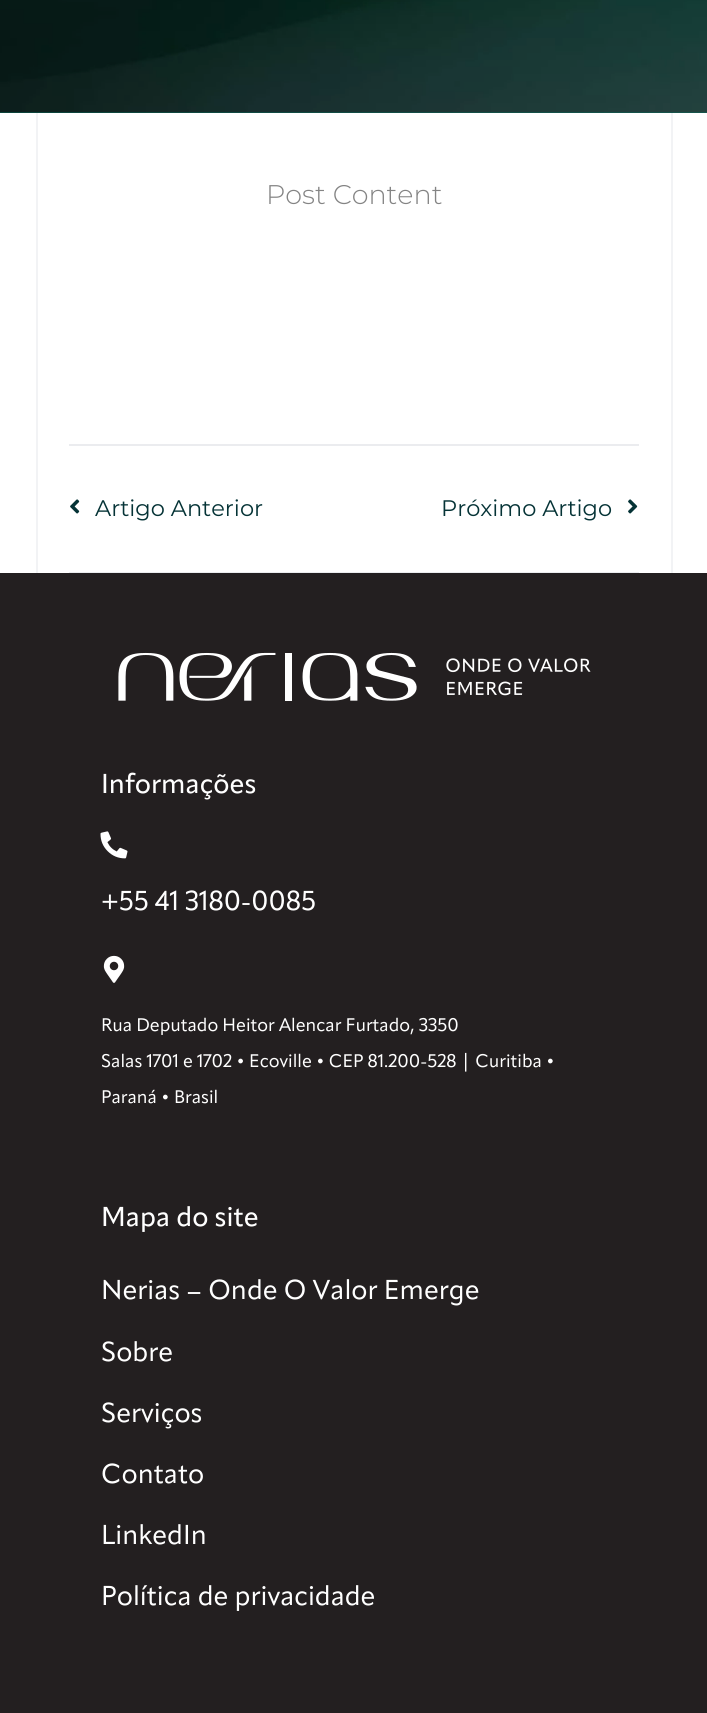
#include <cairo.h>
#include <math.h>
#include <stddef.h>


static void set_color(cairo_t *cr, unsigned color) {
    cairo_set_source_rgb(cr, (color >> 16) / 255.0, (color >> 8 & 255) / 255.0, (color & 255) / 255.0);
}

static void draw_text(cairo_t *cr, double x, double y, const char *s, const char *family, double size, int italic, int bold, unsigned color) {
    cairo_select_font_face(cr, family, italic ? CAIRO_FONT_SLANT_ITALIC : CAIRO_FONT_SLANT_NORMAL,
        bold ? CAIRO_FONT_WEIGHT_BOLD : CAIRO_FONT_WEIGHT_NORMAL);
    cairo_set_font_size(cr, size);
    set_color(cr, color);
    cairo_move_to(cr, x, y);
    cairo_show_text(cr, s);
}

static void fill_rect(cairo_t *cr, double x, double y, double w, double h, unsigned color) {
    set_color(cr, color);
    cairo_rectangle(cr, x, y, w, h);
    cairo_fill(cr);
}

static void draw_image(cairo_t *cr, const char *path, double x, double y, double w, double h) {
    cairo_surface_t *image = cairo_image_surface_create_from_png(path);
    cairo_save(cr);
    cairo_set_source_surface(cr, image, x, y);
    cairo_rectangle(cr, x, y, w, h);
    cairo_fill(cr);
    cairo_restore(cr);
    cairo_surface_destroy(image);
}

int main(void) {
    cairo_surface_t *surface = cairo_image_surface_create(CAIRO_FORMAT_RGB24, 707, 1713);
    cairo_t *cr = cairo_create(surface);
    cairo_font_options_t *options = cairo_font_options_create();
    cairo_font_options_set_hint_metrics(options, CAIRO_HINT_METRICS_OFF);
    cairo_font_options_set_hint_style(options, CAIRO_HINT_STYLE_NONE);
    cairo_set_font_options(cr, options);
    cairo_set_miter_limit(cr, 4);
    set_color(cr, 0xFFFFFF);
    cairo_paint(cr);
    fill_rect(cr, 0, 112, 707, 1, 0x0A6659);
    draw_image(cr, "assets/img1.png", 0, 0, 707, 113);
    cairo_set_source_rgba(cr, 0.004, 0.086, 0.251, 0.05);
    cairo_rectangle(cr, 671, 112, 2, 1);
    cairo_fill(cr);
    fill_rect(cr, 671, 113, 2, 460, 0xF2F3F5);
    fill_rect(cr, 36, 113, 2, 460, 0xF2F3F5);
    draw_text(cr, 266, 204, "Post Content", "Montserrat Light", 27, 0, 0, 0x848484);
    fill_rect(cr, 69, 444, 570, 2, 0xEBECEF);
    fill_rect(cr, 69, 572, 570, 1, 0xEBECEF);
    draw_image(cr, "assets/img2.png", 70, 499, 10, 15);
    draw_text(cr, 95, 516, "Artigo Anterior", "Montserrat", 22.5, 0, 0, 0x053336);
    draw_text(cr, 441, 516, "Próximo Artigo", "Montserrat", 22.5, 0, 0, 0x053336);
    draw_image(cr, "assets/img3.png", 628, 499, 10, 15);
    fill_rect(cr, 0, 573, 707, 1140, 0x231F20);
    draw_image(cr, "assets/img4.png", 118, 652, 473, 49);
    draw_text(cr, 101, 793, "Informações", "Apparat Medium", 27, 0, 0, 0xFFFFFF);
    draw_image(cr, "assets/img5.png", 100, 831, 28, 28);
    draw_text(cr, 101, 910, "+55 41 3180-0085", "Apparat", 27, 0, 0, 0xFFFFFF);
    draw_image(cr, "assets/img6.png", 103, 955, 22, 28);
    draw_text(cr, 101, 1031, "Rua Deputado Heitor Alencar Furtado, 3350", "Apparat", 18, 0, 0, 0xFFFFFF);
    draw_text(cr, 101, 1067, "Salas 1701 e 1702 • Ecoville • CEP 81.200-528 | Curitiba •", "Apparat", 18, 0, 0, 0xFFFFFF);
    draw_text(cr, 101, 1103, "Paraná • Brasil", "Apparat", 18, 0, 0, 0xFFFFFF);
    draw_text(cr, 101, 1226, "Mapa do site", "Apparat Medium", 27, 0, 0, 0xFFFFFF);
    draw_text(cr, 101, 1299, "Nerias – Onde O Valor Emerge", "Apparat", 27, 0, 0, 0xFFFFFF);
    draw_text(cr, 101, 1361, "Sobre", "Apparat", 27, 0, 0, 0xFFFFFF);
    draw_text(cr, 101, 1422, "Serviços", "Apparat", 27, 0, 0, 0xFFFFFF);
    draw_text(cr, 101, 1483, "Contato", "Apparat", 27, 0, 0, 0xFFFFFF);
    draw_text(cr, 101, 1544, "LinkedIn", "Apparat", 27, 0, 0, 0xFFFFFF);
    draw_text(cr, 101, 1605, "Política de privacidade", "Apparat", 27, 0, 0, 0xFFFFFF);
    cairo_surface_write_to_png(surface, "output.png");
    cairo_font_options_destroy(options);
    cairo_destroy(cr);
    cairo_surface_destroy(surface);
    return 0;
}
